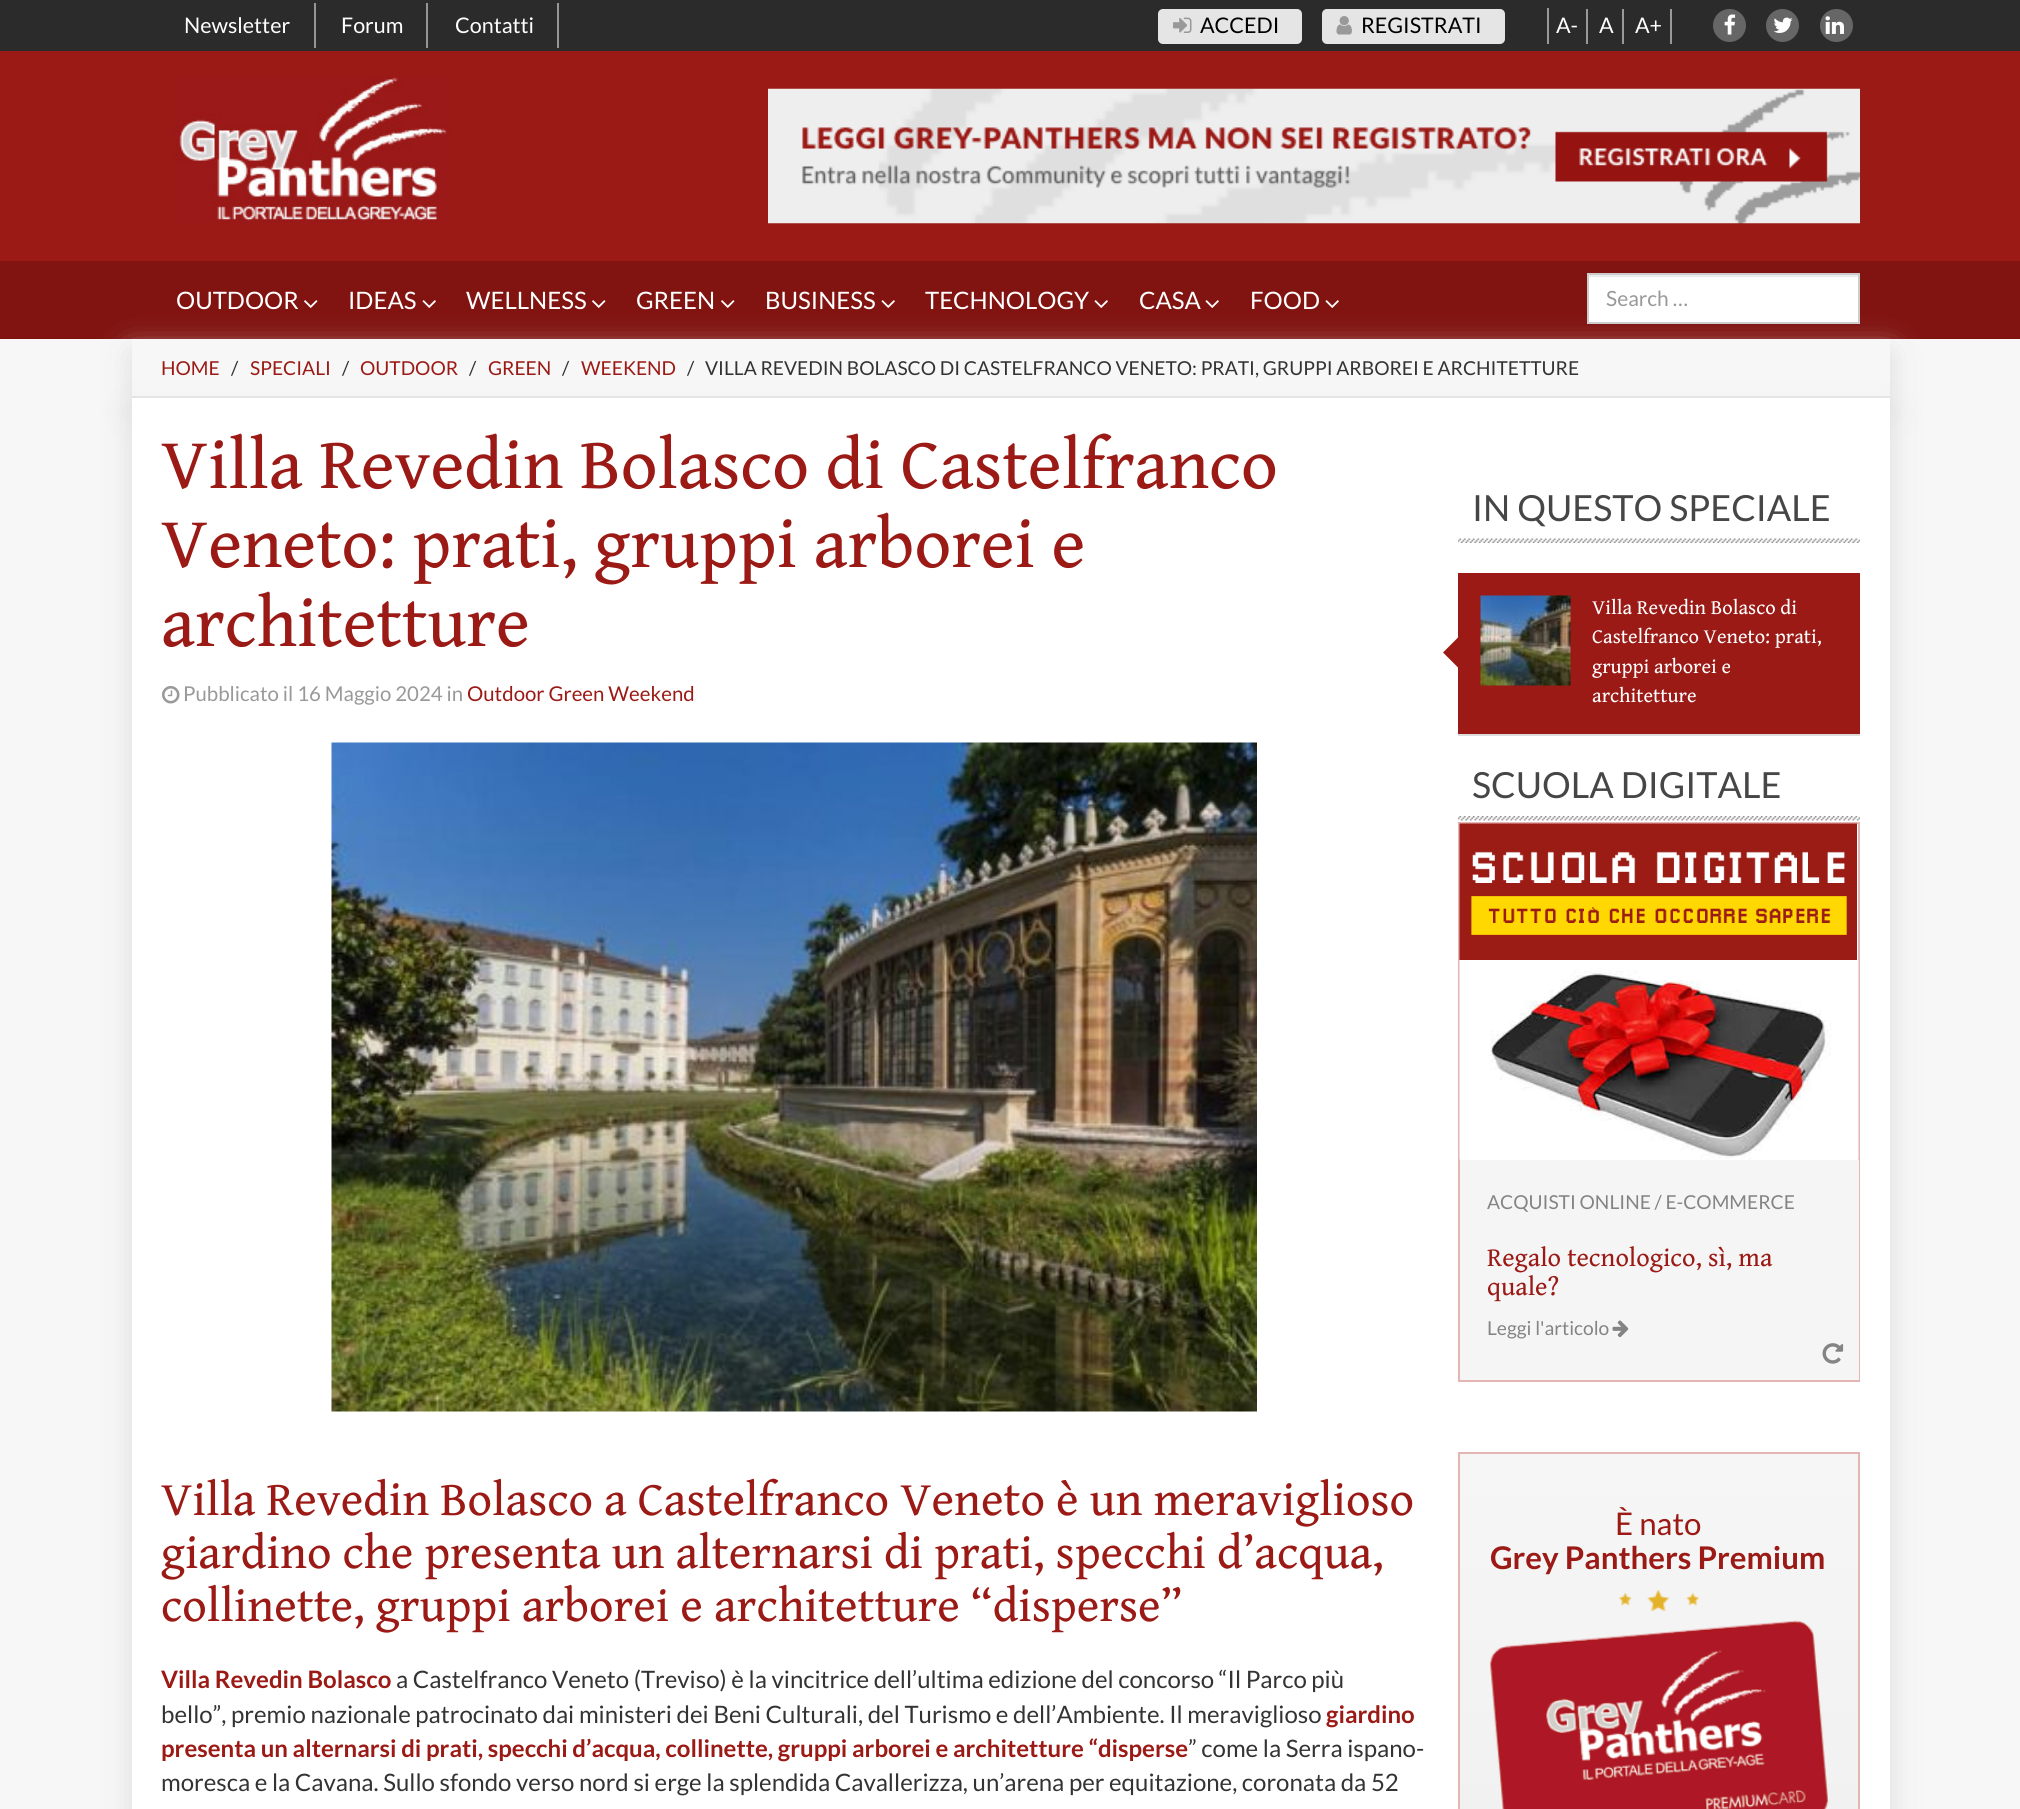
#include <cairo.h>
#include <math.h>
#include <stddef.h>


static void set_color(cairo_t *cr, unsigned color) {
    cairo_set_source_rgb(cr, (color >> 16) / 255.0, (color >> 8 & 255) / 255.0, (color & 255) / 255.0);
}

static void draw_text(cairo_t *cr, double x, double y, const char *s, const char *family, double size, int italic, int bold, unsigned color) {
    cairo_select_font_face(cr, family, italic ? CAIRO_FONT_SLANT_ITALIC : CAIRO_FONT_SLANT_NORMAL,
        bold ? CAIRO_FONT_WEIGHT_BOLD : CAIRO_FONT_WEIGHT_NORMAL);
    cairo_set_font_size(cr, size);
    set_color(cr, color);
    cairo_move_to(cr, x, y);
    cairo_show_text(cr, s);
}

static void fill_rect(cairo_t *cr, double x, double y, double w, double h, unsigned color) {
    set_color(cr, color);
    cairo_rectangle(cr, x, y, w, h);
    cairo_fill(cr);
}

static void rounded_rect(cairo_t *cr, double x, double y, double w, double h, double r) {
    cairo_new_sub_path(cr);
    cairo_arc(cr, x + w - r, y + h - r, r, 0, M_PI / 2);
    cairo_arc(cr, x + r, y + h - r, r, M_PI / 2, M_PI);
    cairo_arc(cr, x + r, y + r, r, M_PI, 1.5 * M_PI);
    cairo_arc(cr, x + w - r, y + r, r, 1.5 * M_PI, 2 * M_PI);
    cairo_close_path(cr);
}

static void draw_shadow(cairo_t *cr, double x, double y, double w, double h, double r, double blur, double alpha) {
    cairo_push_group_with_content(cr, CAIRO_CONTENT_ALPHA);
    cairo_set_operator(cr, CAIRO_OPERATOR_SOURCE);
    for (int i = 15; i >= -15 && fmin(w, h) + blur * i / 3 > 0; i -= 2) {
        double e = blur * i / 6;
        cairo_set_source_rgba(cr, 0, 0, 0, alpha * erfc((i - 1) / 8.5) / 2);
        rounded_rect(cr, x - e, y - e, w + 2 * e, h + 2 * e, fmax(0, fmin(r + e + blur * .6, fmin(w, h) / 2 + e)));
        cairo_fill(cr);
    }
    cairo_pattern_t *soft = cairo_pop_group(cr);
    cairo_mask(cr, soft);
    cairo_pattern_destroy(soft);
}

static void draw_image(cairo_t *cr, const char *path, double x, double y, double w, double h) {
    cairo_surface_t *image = cairo_image_surface_create_from_png(path);
    cairo_save(cr);
    cairo_set_source_surface(cr, image, x, y);
    cairo_rectangle(cr, x, y, w, h);
    cairo_fill(cr);
    cairo_restore(cr);
    cairo_surface_destroy(image);
}

int main(void) {
    cairo_surface_t *surface = cairo_image_surface_create(CAIRO_FORMAT_RGB24, 2020, 1809);
    cairo_t *cr = cairo_create(surface);
    cairo_font_options_t *options = cairo_font_options_create();
    cairo_font_options_set_hint_metrics(options, CAIRO_HINT_METRICS_OFF);
    cairo_font_options_set_hint_style(options, CAIRO_HINT_STYLE_NONE);
    cairo_set_font_options(cr, options);
    cairo_set_miter_limit(cr, 4);
    cairo_pattern_t *gradient;
    set_color(cr, 0xF7F7F7);
    cairo_paint(cr);
    fill_rect(cr, 0, 51, 2020, 210, 0x9B1A15);
    fill_rect(cr, 0, 0, 2020, 51, 0x2B2B2B);
    fill_rect(cr, 314, 3, 2, 45, 0x959595);
    draw_text(cr, 184, 33, "Newsletter", "Lato", 21.5, 0, 0, 0xFFFFFF);
    fill_rect(cr, 426, 3, 2, 45, 0x959595);
    draw_text(cr, 341, 33, "Forum", "Lato", 21.5, 0, 0, 0xFFFFFF);
    fill_rect(cr, 557, 3, 2, 45, 0x959595);
    draw_text(cr, 455, 33, "Contatti", "Lato", 21.5, 0, 0, 0xFFFFFF);
    set_color(cr, 0xE5E5E5);
    rounded_rect(cr, 1158, 9, 144, 35, 5);
    cairo_fill(cr);
    draw_image(cr, "assets/img1.png", 1173, 17, 19, 16);
    draw_text(cr, 1200, 33, "ACCEDI", "Lato", 21.5, 0, 0, 0x000000);
    set_color(cr, 0xE5E5E5);
    rounded_rect(cr, 1322, 9, 183, 35, 5);
    cairo_fill(cr);
    draw_image(cr, "assets/img2.png", 1336, 16, 16, 19);
    draw_text(cr, 1361, 33, "REGISTRATI", "Lato", 21.5, 0, 0, 0x000000);
    fill_rect(cr, 1547, 8, 2, 36, 0x999999);
    fill_rect(cr, 1586, 9, 2, 35, 0x999999);
    draw_text(cr, 1556, 33, "A-", "Lato", 21.5, 0, 0, 0xFFFFFF);
    fill_rect(cr, 1622, 9, 2, 35, 0x999999);
    draw_text(cr, 1599, 33, "A", "Lato", 21.5, 0, 0, 0xFFFFFF);
    fill_rect(cr, 1670, 9, 2, 35, 0x999999);
    draw_text(cr, 1635, 33, "A+", "Lato", 21.5, 0, 0, 0xFFFFFF);
    set_color(cr, 0x666666);
    cairo_new_path(cr);
    cairo_arc(cr, 1729.5, 25.5, 16.5, 0, 2 * M_PI);
    cairo_fill(cr);
    draw_image(cr, "assets/img3.png", 1724, 14, 12, 21);
    cairo_arc(cr, 1782.5, 25.5, 16.5, 0, 2 * M_PI);
    cairo_fill(cr);
    draw_image(cr, "assets/img4.png", 1773, 17, 20, 16);
    cairo_arc(cr, 1836.5, 25.5, 16.5, 0, 2 * M_PI);
    cairo_fill(cr);
    draw_image(cr, "assets/img5.png", 1825, 16, 19, 18);
    draw_image(cr, "assets/img6.png", 174, 77, 276, 146);
    draw_image(cr, "assets/img7.png", 768, 88, 1092, 136);
    fill_rect(cr, 0, 261, 2020, 78, 0x811411);
    set_color(cr, 0xDDDDDD);
    draw_shadow(cr, 132, 354, 1758, 59, 0, 15, 1);
    draw_text(cr, 176, 309, "OUTDOOR", "Lato", 24, 0, 0, 0xFFFFFF);
    draw_image(cr, "assets/img8.png", 304, 300, 14, 8);
    draw_text(cr, 348, 309, "IDEAS", "Lato", 24, 0, 0, 0xFFFFFF);
    draw_image(cr, "assets/img9.png", 422, 300, 14, 8);
    draw_text(cr, 466, 309, "WELLNESS", "Lato", 24, 0, 0, 0xFFFFFF);
    draw_image(cr, "assets/img8.png", 592, 300, 14, 8);
    draw_text(cr, 636, 309, "GREEN", "Lato", 24, 0, 0, 0xFFFFFF);
    draw_image(cr, "assets/img8.png", 721, 300, 14, 8);
    draw_text(cr, 765, 309, "BUSINESS", "Lato", 24, 0, 0, 0xFFFFFF);
    draw_image(cr, "assets/img9.png", 881, 300, 14, 8);
    draw_text(cr, 925, 309, "TECHNOLOGY", "Lato", 24, 0, 0, 0xFFFFFF);
    draw_image(cr, "assets/img9.png", 1094, 300, 14, 8);
    draw_text(cr, 1139, 309, "CASA", "Lato", 24, 0, 0, 0xFFFFFF);
    draw_image(cr, "assets/img9.png", 1205, 300, 14, 8);
    draw_text(cr, 1250, 309, "FOOD", "Lato", 24, 0, 0, 0xFFFFFF);
    draw_image(cr, "assets/img9.png", 1325, 300, 14, 8);
    fill_rect(cr, 1589, 277, 269, 45, 0xFFFFFF);
    fill_rect(cr, 1589, 275, 270, 2, 0xECECEC);
    cairo_rectangle(cr, 1588, 274, 271, 49);
    set_color(cr, 0xCCCCCC);
    cairo_stroke(cr);
    draw_text(cr, 1606, 306, "Search …", "Lato", 21, 0, 0, 0x999999);
    fill_rect(cr, 132, 339, 1758, 57, 0xF7F7F7);
    fill_rect(cr, 132, 396, 1758, 2, 0xE5E5E5);
    set_color(cr, 0xDDDDDD);
    draw_shadow(cr, 132, 413, 1758, 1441, 0, 15, 1);
    draw_text(cr, 161, 375, "HOME", "Lato", 19.2, 0, 0, 0x9B1A15);
    draw_text(cr, 231, 375, "/", "Lato", 19.2, 0, 0, 0x333333);
    draw_text(cr, 250, 375, "SPECIALI", "Lato", 19.2, 0, 0, 0x9B1A15);
    draw_text(cr, 342, 375, "/", "Lato", 19.2, 0, 0, 0x333333);
    draw_text(cr, 360, 375, "OUTDOOR", "Lato", 19.2, 0, 0, 0x9B1A15);
    draw_text(cr, 469, 375, "/", "Lato", 19.2, 0, 0, 0x333333);
    draw_text(cr, 488, 375, "GREEN", "Lato", 19.2, 0, 0, 0x9B1A15);
    draw_text(cr, 562, 375, "/", "Lato", 19.2, 0, 0, 0x333333);
    draw_text(cr, 581, 375, "WEEKEND", "Lato", 19.2, 0, 0, 0x9B1A15);
    draw_text(cr, 687, 375, "/", "Lato", 19.2, 0, 0, 0x333333);
    draw_text(cr, 705, 375, "VILLA REVEDIN BOLASCO DI CASTELFRANCO VENETO: PRATI, GRUPPI ARBOREI E ARCHITETTURE", "Lato", 19.2, 0, 0, 0x333333);
    fill_rect(cr, 132, 398, 1758, 1411, 0xFFFFFF);
    draw_text(cr, 161, 488, "Villa Revedin Bolasco di Castelfranco", "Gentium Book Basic", 72, 0, 0, 0x9B1A15);
    draw_text(cr, 161, 567, "Veneto: prati, gruppi arborei e", "Gentium Book Basic", 72, 0, 0, 0x9B1A15);
    draw_text(cr, 161, 646, "architetture", "Gentium Book Basic", 72, 0, 0, 0x9B1A15);
    draw_image(cr, "assets/img10.png", 162, 686, 18, 18);
    draw_text(cr, 183, 701, "Pubblicato il 16 Maggio 2024 in", "Lato", 20.4, 0, 0, 0x999999);
    draw_text(cr, 467, 701, "Outdoor Green Weekend", "Lato", 20.4, 0, 0, 0x9B1A15);
    draw_image(cr, "assets/img11.png", 331, 742, 926, 670);
    draw_text(cr, 161, 1515, "Villa Revedin Bolasco a Castelfranco Veneto è un meraviglioso", "Gentium Book Basic", 48, 0, 0, 0x9B1A15);
    draw_text(cr, 161, 1568, "giardino che presenta un alternarsi di prati, specchi d’acqua,", "Gentium Book Basic", 48, 0, 0, 0x9B1A15);
    draw_text(cr, 161, 1621, "collinette, gruppi arborei e architetture “disperse”", "Gentium Book Basic", 48, 0, 0, 0x9B1A15);
    draw_text(cr, 161, 1688, "Villa Revedin Bolasco", "Lato", 24, 0, 1, 0x9B1A15);
    draw_text(cr, 396, 1688, "a Castelfranco Veneto (Treviso) è la vincitrice dell’ultima edizione del concorso “Il Parco più", "Lato", 24, 0, 0, 0x333333);
    draw_text(cr, 161, 1723, "bello”, premio nazionale patrocinato dai ministeri dei Beni Culturali, del Turismo e dell’Ambiente. Il meraviglioso", "Lato", 24, 0, 0, 0x333333);
    draw_text(cr, 1326, 1723, "giardino", "Lato", 24, 0, 1, 0x9B1A15);
    draw_text(cr, 161, 1757, "presenta un alternarsi di prati, specchi d’acqua, collinette, gruppi arborei e architetture “disperse", "Lato", 24, 0, 1, 0x9B1A15);
    draw_text(cr, 1188, 1757, "” come la Serra ispano-", "Lato", 24, 0, 0, 0x333333);
    draw_text(cr, 161, 1791, "moresca e la Cavana. Sullo sfondo verso nord si erge la splendida Cavallerizza, un’arena per equitazione, coronata da 52", "Lato", 24, 0, 0, 0x333333);
    draw_image(cr, "assets/img12.png", 1458, 538, 402, 5);
    draw_text(cr, 1472, 521, "IN QUESTO SPECIALE", "Lato", 36, 0, 0, 0x464646);
    fill_rect(cr, 1458, 573, 402, 161, 0x9B1A15);
    fill_rect(cr, 1458, 734, 402, 2, 0xDDDDDD);
    draw_image(cr, "assets/img13.png", 1480, 595, 91, 91);
    draw_text(cr, 1592, 614, "Villa Revedin Bolasco di", "Gentium Book Basic", 20.4, 0, 0, 0xFFFFFF);
    set_color(cr, 0x9B1A15);
    cairo_new_path(cr);
    cairo_move_to(cr, 1458, 637.5);
    cairo_line_to(cr, 1458, 667.5);
    cairo_line_to(cr, 1443, 652.5);
    cairo_close_path(cr);
    cairo_fill(cr);
    draw_text(cr, 1592, 643, "Castelfranco Veneto: prati,", "Gentium Book Basic", 20.4, 0, 0, 0xFFFFFF);
    draw_text(cr, 1592, 673, "gruppi arborei e", "Gentium Book Basic", 20.4, 0, 0, 0xFFFFFF);
    draw_text(cr, 1592, 702, "architetture", "Gentium Book Basic", 20.4, 0, 0, 0xFFFFFF);
    draw_image(cr, "assets/img14.png", 1458, 816, 402, 5);
    draw_text(cr, 1472, 798, "SCUOLA DIGITALE", "Lato", 36, 0, 0, 0x464646);
    cairo_rectangle(cr, 1459, 823, 400, 558);
    set_color(cr, 0xE4B5B3);
    cairo_stroke(cr);
    draw_image(cr, "assets/img15.png", 1459, 823, 398, 137);
    draw_image(cr, "assets/img16.png", 1459, 960, 400, 200);
    fill_rect(cr, 1460, 1160, 399, 220, 0xF5F5F5);
    draw_text(cr, 1487, 1209, "ACQUISTI ONLINE / E-COMMERCE", "Lato", 19.2, 0, 0, 0x848484);
    draw_text(cr, 1487, 1266, "Regalo tecnologico, sì, ma", "Gentium Book Basic", 26.4, 0, 0, 0x9B1A15);
    draw_text(cr, 1487, 1295, "quale?", "Gentium Book Basic", 26.4, 0, 0, 0x9B1A15);
    draw_text(cr, 1487, 1335, "Leggi l'articolo", "Lato", 19.2, 0, 0, 0x848484);
    draw_image(cr, "assets/img17.png", 1612, 1320, 17, 18);
    draw_image(cr, "assets/img18.png", 1822, 1343, 22, 21);
    gradient = cairo_pattern_create_linear(1659, 1454, 1659, 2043);
    cairo_pattern_add_color_stop_rgba(gradient, 0, 0.965, 0.965, 0.965, 1);
    cairo_pattern_add_color_stop_rgba(gradient, 1, 0.933, 0.933, 0.933, 1);
    cairo_set_source(cr, gradient);
    cairo_pattern_destroy(gradient);
    cairo_rectangle(cr, 1460, 1454, 398, 355);
    cairo_fill(cr);
    cairo_rectangle(cr, 1459, 1453, 400, 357);
    set_color(cr, 0xE4B5B3);
    cairo_stroke(cr);
    draw_text(cr, 1615, 1535, "È nato", "Lato", 31.25, 0, 0, 0x9B1A15);
    draw_text(cr, 1490, 1569, "Grey Panthers Premium", "Lato", 31.25, 0, 1, 0x9B1A15);
    draw_image(cr, "assets/img19.png", 1618, 1590, 82, 21);
    draw_image(cr, "assets/img20.png", 1489, 1620, 340, 189);
    cairo_surface_write_to_png(surface, "output.png");
    cairo_font_options_destroy(options);
    cairo_destroy(cr);
    cairo_surface_destroy(surface);
    return 0;
}
